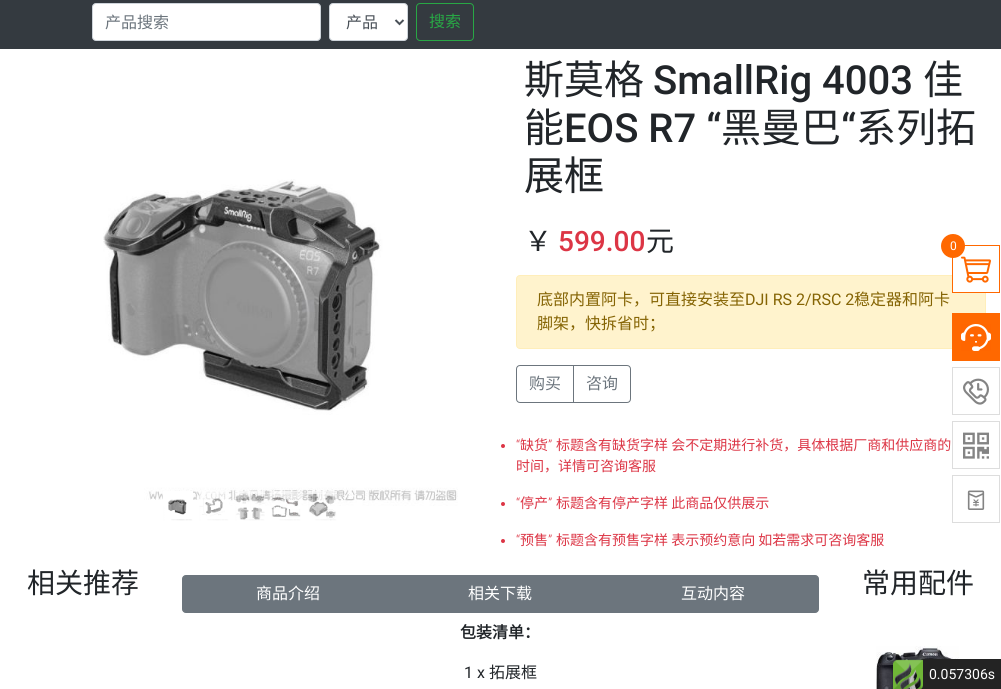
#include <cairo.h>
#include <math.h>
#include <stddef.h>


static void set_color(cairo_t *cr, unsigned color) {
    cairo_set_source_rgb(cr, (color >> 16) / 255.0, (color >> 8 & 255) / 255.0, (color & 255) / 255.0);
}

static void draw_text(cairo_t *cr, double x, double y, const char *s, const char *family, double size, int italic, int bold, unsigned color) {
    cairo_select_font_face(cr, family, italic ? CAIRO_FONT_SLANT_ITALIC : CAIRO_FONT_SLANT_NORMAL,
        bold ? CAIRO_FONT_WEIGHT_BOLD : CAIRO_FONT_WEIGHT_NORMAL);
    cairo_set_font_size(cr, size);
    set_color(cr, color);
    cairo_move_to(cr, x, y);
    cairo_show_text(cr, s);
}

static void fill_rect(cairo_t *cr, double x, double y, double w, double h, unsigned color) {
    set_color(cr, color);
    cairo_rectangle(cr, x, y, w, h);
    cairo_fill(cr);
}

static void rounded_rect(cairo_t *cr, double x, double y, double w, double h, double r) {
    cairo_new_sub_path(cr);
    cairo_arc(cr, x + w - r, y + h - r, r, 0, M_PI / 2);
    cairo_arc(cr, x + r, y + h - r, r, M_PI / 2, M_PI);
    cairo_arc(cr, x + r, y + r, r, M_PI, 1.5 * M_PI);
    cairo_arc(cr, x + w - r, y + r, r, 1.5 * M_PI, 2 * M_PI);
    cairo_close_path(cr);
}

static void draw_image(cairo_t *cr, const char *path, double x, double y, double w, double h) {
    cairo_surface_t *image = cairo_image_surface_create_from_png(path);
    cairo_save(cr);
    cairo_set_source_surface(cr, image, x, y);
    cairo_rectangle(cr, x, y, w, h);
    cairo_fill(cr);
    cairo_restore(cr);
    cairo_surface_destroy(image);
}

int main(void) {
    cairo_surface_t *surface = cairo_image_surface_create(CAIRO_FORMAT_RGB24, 1001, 689);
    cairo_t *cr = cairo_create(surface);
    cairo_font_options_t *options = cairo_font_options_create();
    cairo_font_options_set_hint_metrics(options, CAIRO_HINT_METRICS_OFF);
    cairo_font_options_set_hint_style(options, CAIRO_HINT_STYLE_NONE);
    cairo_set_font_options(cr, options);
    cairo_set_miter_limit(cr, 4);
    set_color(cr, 0xFFFFFF);
    cairo_paint(cr);
    fill_rect(cr, 0, 0, 1001, 49, 0x343A40);
    set_color(cr, 0xFFFFFF);
    rounded_rect(cr, 92.5, 3.5, 228, 37, 3.5);
    cairo_fill_preserve(cr);
    set_color(cr, 0xCED4DA);
    cairo_set_line_width(cr, 1);
    cairo_stroke(cr);
    draw_text(cr, 105, 28, "产品搜索", "Noto Sans CJK SC", 16, 0, 0, 0x6C757D);
    set_color(cr, 0xFFFFFF);
    rounded_rect(cr, 329.5, 3.5, 78, 37, 3.5);
    cairo_fill_preserve(cr);
    set_color(cr, 0xCED4DA);
    cairo_stroke(cr);
    cairo_new_path(cr);
    cairo_move_to(cr, 395.5, 20);
    cairo_line_to(cr, 399.5, 24);
    cairo_line_to(cr, 403.5, 20);
    set_color(cr, 0x495057);
    cairo_set_line_width(cr, 2);
    cairo_stroke(cr);
    draw_text(cr, 346, 28, "产品", "Noto Sans CJK SC", 16, 0, 0, 0x495057);
    rounded_rect(cr, 416.5, 3.5, 57, 37, 3.5);
    set_color(cr, 0x28A745);
    cairo_set_line_width(cr, 1);
    cairo_stroke(cr);
    draw_text(cr, 429, 27, "搜索", "Noto Sans CJK SC", 16, 0, 0, 0x28A745);
    draw_image(cr, "assets/img1.png", 103, 179, 355, 327);
    fill_rect(cr, 163, 491, 30, 3, 0xFFFFFF);
    draw_image(cr, "assets/img2.png", 163, 494, 30, 27);
    cairo_set_source_rgba(cr, 1, 1, 1, 0.5);
    cairo_rectangle(cr, 199, 491, 30, 3);
    cairo_fill(cr);
    draw_image(cr, "assets/img3.png", 199, 491, 30, 30);
    cairo_rectangle(cr, 235, 491, 30, 3);
    cairo_fill(cr);
    draw_image(cr, "assets/img4.png", 235, 491, 30, 30);
    cairo_rectangle(cr, 271, 491, 30, 3);
    cairo_fill(cr);
    draw_image(cr, "assets/img5.png", 271, 491, 30, 30);
    cairo_rectangle(cr, 307, 491, 30, 3);
    cairo_fill(cr);
    draw_image(cr, "assets/img6.png", 307, 491, 30, 30);
    draw_text(cr, 524, 94, "斯莫格", "Noto Sans CJK SC", 40, 0, 0, 0x212529);
    draw_text(cr, 653, 94, "SmallRig 4003", "Roboto Medium", 40, 0, 0, 0x212529);
    draw_text(cr, 923, 94, "佳", "Noto Sans CJK SC", 40, 0, 0, 0x212529);
    draw_text(cr, 524, 142, "能", "Noto Sans CJK SC", 40, 0, 0, 0x212529);
    draw_text(cr, 564, 142, "EOS R7 “", "Roboto Medium", 40, 0, 0, 0x212529);
    draw_text(cr, 721, 142, "黑曼巴", "Noto Sans CJK SC", 40, 0, 0, 0x212529);
    draw_text(cr, 841, 142, "“", "Roboto Medium", 40, 0, 0, 0x212529);
    draw_text(cr, 856, 142, "系列拓", "Noto Sans CJK SC", 40, 0, 0, 0x212529);
    draw_text(cr, 524, 190, "展框", "Noto Sans CJK SC", 40, 0, 0, 0x212529);
    draw_text(cr, 524, 251, "￥", "Noto Sans CJK SC", 28, 0, 0, 0x212529);
    draw_text(cr, 558, 251, "599.00", "Roboto Medium", 28, 0, 0, 0xDC3545);
    draw_text(cr, 646, 251, "元", "Noto Sans CJK SC", 28, 0, 0, 0x212529);
    set_color(cr, 0xFFF3CD);
    rounded_rect(cr, 516.5, 275.5, 469, 73, 3.5);
    cairo_fill_preserve(cr);
    set_color(cr, 0xFFEEBA);
    cairo_stroke(cr);
    draw_text(cr, 537, 305, "底部内置阿卡，可直接安装至", "Noto Sans CJK SC", 16, 0, 0, 0x856404);
    draw_text(cr, 745, 305, "DJI RS 2/RSC 2", "Roboto", 16, 0, 0, 0x856404);
    draw_text(cr, 854, 305, "稳定器和阿卡", "Noto Sans CJK SC", 16, 0, 0, 0x856404);
    draw_text(cr, 537, 329, "脚架，快拆省时；", "Noto Sans CJK SC", 16, 0, 0, 0x856404);
    cairo_new_path(cr);
    cairo_move_to(cr, 520, 365.5);
    cairo_line_to(cr, 573.5, 365.5);
    cairo_line_to(cr, 573.5, 402.5);
    cairo_line_to(cr, 520, 402.5);
    cairo_curve_to(cr, 518, 402.5, 516.5, 401, 516.5, 399);
    cairo_line_to(cr, 516.5, 369);
    cairo_curve_to(cr, 516.5, 367, 518, 365.5, 520, 365.5);
    cairo_close_path(cr);
    set_color(cr, 0x6C757D);
    cairo_stroke(cr);
    draw_text(cr, 529, 389, "购买", "Noto Sans CJK SC", 16, 0, 0, 0x6C757D);
    cairo_new_path(cr);
    cairo_move_to(cr, 573.5, 365.5);
    cairo_line_to(cr, 627, 365.5);
    cairo_curve_to(cr, 629, 365.5, 630.5, 367, 630.5, 369);
    cairo_line_to(cr, 630.5, 399);
    cairo_curve_to(cr, 630.5, 401, 629, 402.5, 627, 402.5);
    cairo_line_to(cr, 573.5, 402.5);
    cairo_close_path(cr);
    cairo_stroke(cr);
    draw_text(cr, 586, 389, "咨询", "Noto Sans CJK SC", 16, 0, 0, 0x6C757D);
    draw_text(cr, 516, 450, "“", "Roboto Light", 14, 0, 0, 0xDC3545);
    draw_text(cr, 520, 450, "缺货", "Noto Sans CJK SC", 14, 0, 0, 0xDC3545);
    draw_text(cr, 548, 450, "”", "Roboto Light", 14, 0, 0, 0xDC3545);
    draw_text(cr, 556, 450, "标题含有缺货字样 会不定期进行补货，具体根据厂商和供应商的", "Noto Sans CJK SC", 14, 0, 0, 0xDC3545);
    cairo_new_path(cr);
    cairo_arc(cr, 503, 446, 2, 0, 2 * M_PI);
    cairo_fill(cr);
    draw_text(cr, 516, 471, "时间，详情可咨询客服", "Noto Sans CJK SC", 14, 0, 0, 0xDC3545);
    draw_text(cr, 516, 508, "“", "Roboto Light", 14, 0, 0, 0xDC3545);
    draw_text(cr, 520, 508, "停产", "Noto Sans CJK SC", 14, 0, 0, 0xDC3545);
    draw_text(cr, 548, 508, "”", "Roboto Light", 14, 0, 0, 0xDC3545);
    draw_text(cr, 556, 508, "标题含有停产字样 此商品仅供展示", "Noto Sans CJK SC", 14, 0, 0, 0xDC3545);
    cairo_new_path(cr);
    cairo_arc(cr, 503, 504, 2, 0, 2 * M_PI);
    cairo_fill(cr);
    draw_text(cr, 516, 545, "“", "Roboto Light", 14, 0, 0, 0xDC3545);
    draw_text(cr, 520, 545, "预售", "Noto Sans CJK SC", 14, 0, 0, 0xDC3545);
    draw_text(cr, 548, 545, "”", "Roboto Light", 14, 0, 0, 0xDC3545);
    draw_text(cr, 556, 545, "标题含有预售字样 表示预约意向 如若需求可咨询客服", "Noto Sans CJK SC", 14, 0, 0, 0xDC3545);
    cairo_new_path(cr);
    cairo_arc(cr, 503, 541, 2, 0, 2 * M_PI);
    cairo_fill(cr);
    fill_rect(cr, 953, 275, 33, 17, 0xFFFFFF);
    cairo_rectangle(cr, 952.5, 245.5, 47, 47);
    set_color(cr, 0xFF6800);
    cairo_stroke(cr);
    draw_image(cr, "assets/img7.png", 961, 256, 30, 27);
    cairo_arc(cr, 953, 246, 12, 0, 2 * M_PI);
    cairo_fill(cr);
    draw_text(cr, 950, 250, "0", "Roboto", 12, 0, 0, 0xFFFFFF);
    fill_rect(cr, 952, 313, 48, 48, 0xFF6800);
    draw_image(cr, "assets/img8.png", 961, 324, 30, 27);
    cairo_rectangle(cr, 952.5, 367.5, 47, 47);
    set_color(cr, 0xDDDDDD);
    cairo_stroke(cr);
    draw_image(cr, "assets/img9.png", 963, 378, 26, 27);
    cairo_rectangle(cr, 952.5, 421.5, 47, 47);
    cairo_stroke(cr);
    draw_image(cr, "assets/img10.png", 963, 432, 26, 27);
    cairo_rectangle(cr, 952.5, 475.5, 47, 47);
    cairo_stroke(cr);
    draw_image(cr, "assets/img11.png", 967, 490, 18, 20);
    draw_text(cr, 27, 593, "相关推荐", "Noto Sans CJK SC", 28, 0, 0, 0x212529);
    set_color(cr, 0x6C757D);
    cairo_new_path(cr);
    cairo_move_to(cr, 186, 575.5);
    cairo_line_to(cr, 394.5, 575.5);
    cairo_line_to(cr, 394.5, 612.5);
    cairo_line_to(cr, 186, 612.5);
    cairo_curve_to(cr, 184, 612.5, 182.5, 611, 182.5, 609);
    cairo_line_to(cr, 182.5, 579);
    cairo_curve_to(cr, 182.5, 577, 184, 575.5, 186, 575.5);
    cairo_close_path(cr);
    cairo_fill_preserve(cr);
    cairo_stroke(cr);
    draw_text(cr, 256, 599, "商品介绍", "Noto Sans CJK SC", 16, 0, 0, 0xFFFFFF);
    fill_rect(cr, 395, 575, 211, 38, 0x6C757D);
    draw_text(cr, 468, 599, "相关下载", "Noto Sans CJK SC", 16, 0, 0, 0xFFFFFF);
    set_color(cr, 0x6C757D);
    cairo_new_path(cr);
    cairo_move_to(cr, 606.5, 575.5);
    cairo_line_to(cr, 815, 575.5);
    cairo_curve_to(cr, 817, 575.5, 818.5, 577, 818.5, 579);
    cairo_line_to(cr, 818.5, 609);
    cairo_curve_to(cr, 818.5, 611, 817, 612.5, 815, 612.5);
    cairo_line_to(cr, 606.5, 612.5);
    cairo_close_path(cr);
    cairo_fill_preserve(cr);
    cairo_stroke(cr);
    draw_text(cr, 681, 599, "互动内容", "Noto Sans CJK SC", 16, 0, 0, 0xFFFFFF);
    draw_text(cr, 460, 638, "包装清单：", "Noto Sans CJK SC", 16, 0, 1, 0x212529);
    draw_text(cr, 464, 678, "1 x", "Roboto", 16, 0, 0, 0x212529);
    draw_text(cr, 489, 678, "拓展框", "Noto Sans CJK SC", 16, 0, 0, 0x212529);
    draw_text(cr, 862, 593, "常用配件", "Noto Sans CJK SC", 28, 0, 0, 0x212529);
    draw_image(cr, "assets/img12.png", 876, 646, 83, 43);
    draw_image(cr, "assets/img13.png", 893, 659, 30, 30);
    fill_rect(cr, 923, 659, 78, 30, 0x232323);
    draw_text(cr, 929, 679, "0.057306s", "Roboto", 14, 0, 0, 0xFFFFFF);
    cairo_surface_write_to_png(surface, "output.png");
    cairo_font_options_destroy(options);
    cairo_destroy(cr);
    cairo_surface_destroy(surface);
    return 0;
}
